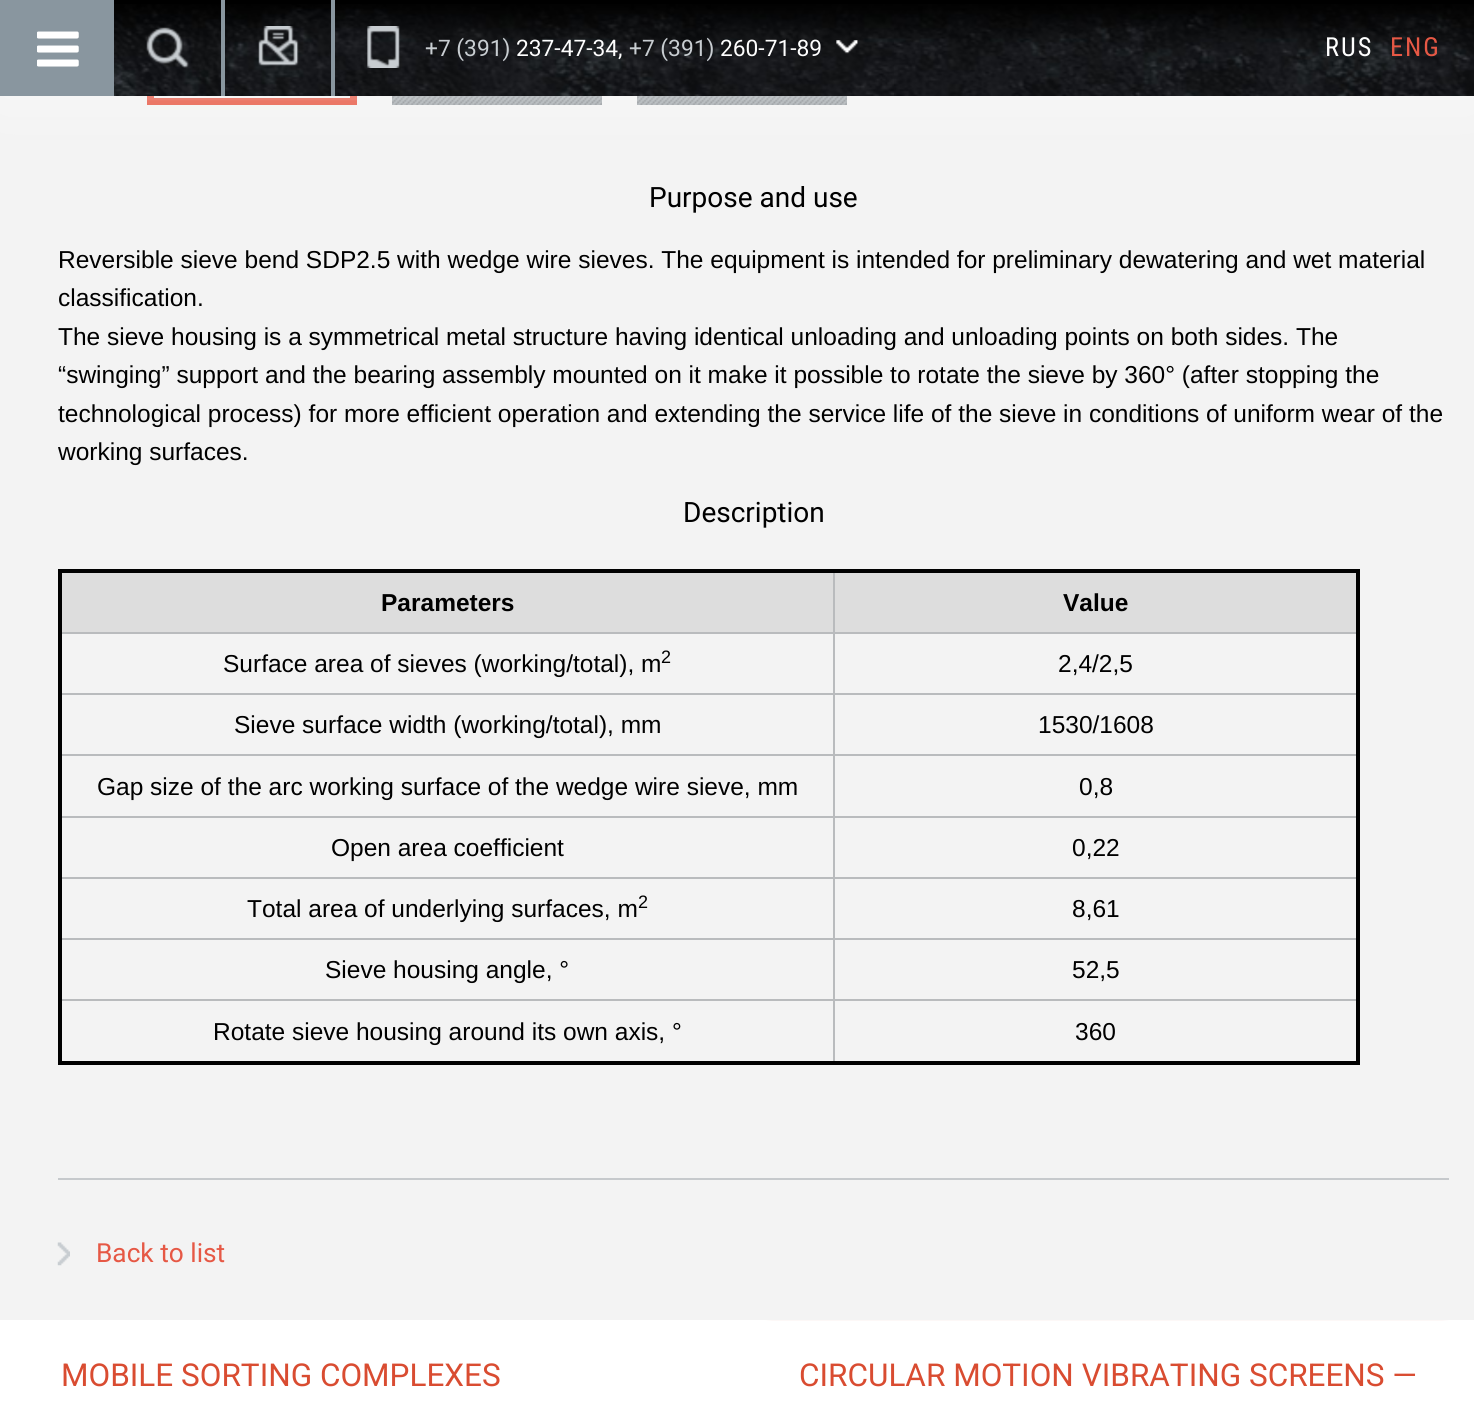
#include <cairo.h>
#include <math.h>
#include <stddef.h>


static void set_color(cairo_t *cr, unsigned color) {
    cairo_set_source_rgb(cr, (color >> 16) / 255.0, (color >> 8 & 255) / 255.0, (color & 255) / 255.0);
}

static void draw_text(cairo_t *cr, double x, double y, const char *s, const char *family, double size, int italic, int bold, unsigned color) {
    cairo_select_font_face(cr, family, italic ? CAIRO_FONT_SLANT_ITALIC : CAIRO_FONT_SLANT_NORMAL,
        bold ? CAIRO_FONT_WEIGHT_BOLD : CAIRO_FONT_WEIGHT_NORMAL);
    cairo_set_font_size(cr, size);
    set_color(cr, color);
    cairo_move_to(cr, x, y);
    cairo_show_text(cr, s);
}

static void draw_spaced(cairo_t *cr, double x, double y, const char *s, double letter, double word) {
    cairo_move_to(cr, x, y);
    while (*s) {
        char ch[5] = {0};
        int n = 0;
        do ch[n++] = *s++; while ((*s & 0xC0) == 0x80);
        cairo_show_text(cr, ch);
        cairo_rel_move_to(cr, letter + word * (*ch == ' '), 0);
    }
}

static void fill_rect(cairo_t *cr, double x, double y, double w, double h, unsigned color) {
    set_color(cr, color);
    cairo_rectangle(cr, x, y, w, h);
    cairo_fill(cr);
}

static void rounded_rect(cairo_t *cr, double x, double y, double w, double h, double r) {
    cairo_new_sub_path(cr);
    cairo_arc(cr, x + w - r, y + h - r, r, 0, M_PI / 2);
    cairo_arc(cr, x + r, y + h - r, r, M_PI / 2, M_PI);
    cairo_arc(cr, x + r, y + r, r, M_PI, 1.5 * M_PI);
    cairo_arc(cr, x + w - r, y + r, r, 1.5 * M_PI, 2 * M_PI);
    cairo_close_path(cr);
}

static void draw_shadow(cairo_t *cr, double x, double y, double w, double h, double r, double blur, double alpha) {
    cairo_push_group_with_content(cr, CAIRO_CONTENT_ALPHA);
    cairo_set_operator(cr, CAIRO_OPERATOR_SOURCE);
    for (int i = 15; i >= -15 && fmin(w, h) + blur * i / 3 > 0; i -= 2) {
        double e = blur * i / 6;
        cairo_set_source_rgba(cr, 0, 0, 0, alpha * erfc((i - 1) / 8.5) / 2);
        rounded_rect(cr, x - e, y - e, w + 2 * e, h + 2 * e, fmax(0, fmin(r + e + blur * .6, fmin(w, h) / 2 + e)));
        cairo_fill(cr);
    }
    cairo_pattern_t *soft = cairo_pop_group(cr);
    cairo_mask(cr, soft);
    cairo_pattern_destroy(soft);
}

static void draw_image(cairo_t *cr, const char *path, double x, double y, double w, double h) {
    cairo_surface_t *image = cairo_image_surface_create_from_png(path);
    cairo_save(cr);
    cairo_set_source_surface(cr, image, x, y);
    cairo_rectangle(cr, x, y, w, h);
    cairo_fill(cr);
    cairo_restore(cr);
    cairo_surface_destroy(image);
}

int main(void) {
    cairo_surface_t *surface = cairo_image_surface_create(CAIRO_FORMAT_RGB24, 1474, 1416);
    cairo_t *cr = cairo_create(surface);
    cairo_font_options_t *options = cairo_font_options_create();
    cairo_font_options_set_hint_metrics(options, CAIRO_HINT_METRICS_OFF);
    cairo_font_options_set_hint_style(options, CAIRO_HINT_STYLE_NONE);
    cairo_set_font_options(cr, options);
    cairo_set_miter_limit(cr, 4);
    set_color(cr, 0xF3F3F3);
    cairo_paint(cr);
    cairo_rectangle(cr, 150.5, -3.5, 203, 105);
    set_color(cr, 0xE65845);
    cairo_set_line_width(cr, 7);
    cairo_stroke(cr);
    draw_image(cr, "assets/img7.png", 392, 96, 210, 9);
    draw_image(cr, "assets/img8.png", 637, 96, 210, 9);
    set_color(cr, 0xFFFFFF);
    draw_shadow(cr, 0, 0, 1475, 96, 0, 26, 0.5);
    fill_rect(cr, 114, 0, 1360, 4, 0x000000);
    draw_image(cr, "assets/img1.png", 114, 4, 1360, 92);
    fill_rect(cr, 0, 0, 114, 96, 0x89969F);
    draw_image(cr, "assets/img2.png", 37, 31, 42, 36);
    draw_image(cr, "assets/img3.png", 146, 27, 43, 41);
    fill_rect(cr, 221, 0, 4, 96, 0x89969F);
    draw_image(cr, "assets/img4.png", 258, 26, 41, 40);
    fill_rect(cr, 331, 0, 4, 96, 0x89969F);
    draw_image(cr, "assets/img5.png", 367, 26, 33, 42);
    draw_text(cr, 425, 56, "+7 (391)", "Roboto", 22.75, 0, 0, 0xC8CDD1);
    draw_text(cr, 516, 56, "237-47-34,", "Roboto", 22.75, 0, 0, 0xFEFEFE);
    draw_text(cr, 629, 56, "+7 (391)", "Roboto", 22.75, 0, 0, 0xC8CDD1);
    draw_text(cr, 720, 56, "260-71-89", "Roboto", 22.75, 0, 0, 0xFEFEFE);
    draw_image(cr, "assets/img6.png", 836, 40, 22, 14);
    cairo_select_font_face(cr, "Roboto Condensed", CAIRO_FONT_SLANT_NORMAL, CAIRO_FONT_WEIGHT_NORMAL);
    cairo_set_font_size(cr, 26.25);
    draw_spaced(cr, 1325, 56, "RUS", 2, 0);
    set_color(cr, 0xE65845);
    draw_spaced(cr, 1390, 56, "ENG", 2, 0);
    draw_text(cr, 649, 207, "Purpose and use", "Roboto", 28, 0, 0, 0x000000);
    draw_text(cr, 58, 268, "Reversible sieve bend SDP2.5 with wedge wire sieves. The equipment is intended for preliminary dewatering and wet material", "Liberation Sans", 24.5, 0, 0, 0x000000);
    draw_text(cr, 58, 306, "classification.", "Liberation Sans", 24.5, 0, 0, 0x000000);
    draw_text(cr, 58, 345, "The sieve housing is a symmetrical metal structure having identical unloading and unloading points on both sides. The", "Liberation Sans", 24.5, 0, 0, 0x000000);
    draw_text(cr, 58, 383, "“swinging” support and the bearing assembly mounted on it make it possible to rotate the sieve by 360° (after stopping the", "Liberation Sans", 24.5, 0, 0, 0x000000);
    draw_text(cr, 58, 422, "technological process) for more efficient operation and extending the service life of the sieve in conditions of uniform wear of the", "Liberation Sans", 24.5, 0, 0, 0x000000);
    draw_text(cr, 58, 460, "working surfaces.", "Liberation Sans", 24.5, 0, 0, 0x000000);
    draw_text(cr, 683, 522, "Description", "Roboto", 28, 0, 0, 0x000000);
    fill_rect(cr, 833, 632, 527, 2, 0xB9BBBD);
    fill_rect(cr, 833, 693, 527, 2, 0xB9BBBD);
    fill_rect(cr, 833, 754, 527, 2, 0xB9BBBD);
    fill_rect(cr, 833, 816, 527, 2, 0xB9BBBD);
    fill_rect(cr, 833, 877, 527, 2, 0xB9BBBD);
    fill_rect(cr, 833, 938, 527, 2, 0xB9BBBD);
    fill_rect(cr, 833, 999, 527, 2, 0xB9BBBD);
    fill_rect(cr, 833, 999, 2, 65, 0xB9BBBD);
    fill_rect(cr, 60, 999, 775, 2, 0xB9BBBD);
    fill_rect(cr, 833, 938, 2, 63, 0xB9BBBD);
    fill_rect(cr, 60, 938, 775, 2, 0xB9BBBD);
    fill_rect(cr, 833, 877, 2, 63, 0xB9BBBD);
    fill_rect(cr, 60, 877, 775, 2, 0xB9BBBD);
    fill_rect(cr, 833, 816, 2, 63, 0xB9BBBD);
    fill_rect(cr, 60, 816, 775, 2, 0xB9BBBD);
    fill_rect(cr, 833, 754, 2, 63, 0xB9BBBD);
    fill_rect(cr, 60, 754, 775, 2, 0xB9BBBD);
    fill_rect(cr, 833, 693, 2, 63, 0xB9BBBD);
    fill_rect(cr, 60, 693, 775, 2, 0xB9BBBD);
    fill_rect(cr, 833, 632, 2, 63, 0xB9BBBD);
    fill_rect(cr, 60, 632, 775, 2, 0xB9BBBD);
    fill_rect(cr, 833, 571, 2, 63, 0xB9BBBD);
    fill_rect(cr, 58, 569, 1302, 4, 0x000000);
    fill_rect(cr, 1356, 569, 4, 495, 0x000000);
    fill_rect(cr, 58, 1061, 1302, 4, 0x000000);
    fill_rect(cr, 58, 569, 4, 495, 0x000000);
    fill_rect(cr, 62, 573, 771, 59, 0xDDDDDD);
    draw_text(cr, 381, 611, "Parameters", "Liberation Sans", 24.5, 0, 1, 0x000000);
    fill_rect(cr, 835, 573, 521, 59, 0xDDDDDD);
    draw_text(cr, 1063, 611, "Value", "Liberation Sans", 24.5, 0, 1, 0x000000);
    draw_text(cr, 223, 672, "Surface area of sieves (working/total), m", "Liberation Sans", 24.5, 0, 0, 0x000000);
    draw_text(cr, 661, 663, "2", "Liberation Sans", 18, 0, 0, 0x000000);
    draw_text(cr, 1058, 672, "2,4/2,5", "Liberation Sans", 24.5, 0, 0, 0x000000);
    draw_text(cr, 234, 733, "Sieve surface width (working/total), mm", "Liberation Sans", 24.5, 0, 0, 0x000000);
    draw_text(cr, 1038, 733, "1530/1608", "Liberation Sans", 24.5, 0, 0, 0x000000);
    draw_text(cr, 97, 795, "Gap size of the arc working surface of the wedge wire sieve, mm", "Liberation Sans", 24.5, 0, 0, 0x000000);
    draw_text(cr, 1079, 795, "0,8", "Liberation Sans", 24.5, 0, 0, 0x000000);
    draw_text(cr, 331, 856, "Open area coefficient", "Liberation Sans", 24.5, 0, 0, 0x000000);
    draw_text(cr, 1072, 856, "0,22", "Liberation Sans", 24.5, 0, 0, 0x000000);
    draw_text(cr, 247, 917, "Total area of underlying surfaces, m", "Liberation Sans", 24.5, 0, 0, 0x000000);
    draw_text(cr, 638, 908, "2", "Liberation Sans", 18, 0, 0, 0x000000);
    draw_text(cr, 1072, 917, "8,61", "Liberation Sans", 24.5, 0, 0, 0x000000);
    draw_text(cr, 325, 978, "Sieve housing angle, °", "Liberation Sans", 24.5, 0, 0, 0x000000);
    draw_text(cr, 1072, 978, "52,5", "Liberation Sans", 24.5, 0, 0, 0x000000);
    draw_text(cr, 213, 1040, "Rotate sieve housing around its own axis, °", "Liberation Sans", 24.5, 0, 0, 0x000000);
    draw_text(cr, 1075, 1040, "360", "Liberation Sans", 24.5, 0, 0, 0x000000);
    fill_rect(cr, 58, 1178, 1391, 2, 0xC6C9CC);
    draw_image(cr, "assets/img9.png", 57, 1242, 13, 24);
    draw_text(cr, 96, 1262, "Back to list", "Roboto", 26.25, 0, 0, 0xE65845);
    fill_rect(cr, 0, 1320, 1474, 96, 0xFFFFFF);
    draw_text(cr, 61, 1386, "MOBILE SORTING COMPLEXES", "Roboto", 31.5, 0, 0, 0xD94C31);
    set_color(cr, 0xFDF8F7);
    cairo_new_path(cr);
    cairo_move_to(cr, 765, 1320);
    cairo_line_to(cr, 1449, 1320);
    cairo_line_to(cr, 1442, 1321);
    cairo_line_to(cr, 772, 1321);
    cairo_close_path(cr);
    cairo_fill(cr);
    draw_text(cr, 799, 1386, "CIRCULAR MOTION VIBRATING SCREENS —", "Roboto", 31.5, 0, 0, 0xD94C31);
    cairo_surface_write_to_png(surface, "output.png");
    cairo_font_options_destroy(options);
    cairo_destroy(cr);
    cairo_surface_destroy(surface);
    return 0;
}
